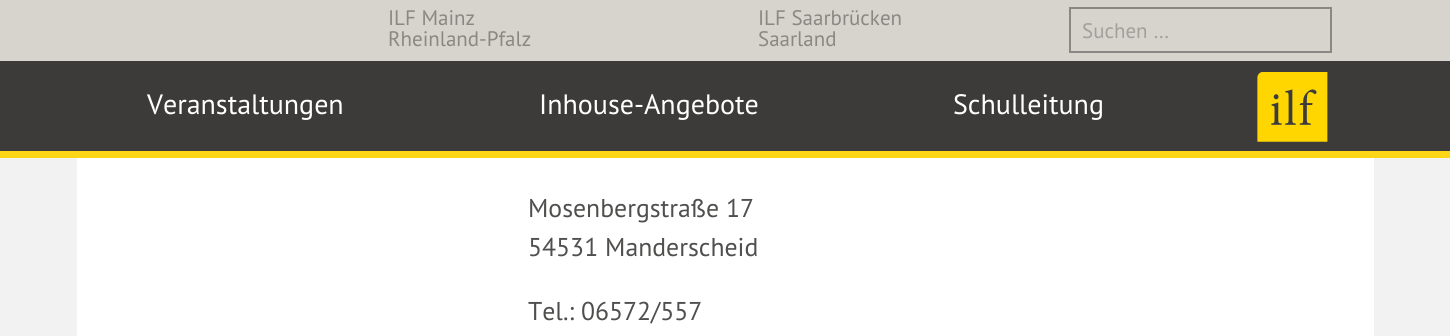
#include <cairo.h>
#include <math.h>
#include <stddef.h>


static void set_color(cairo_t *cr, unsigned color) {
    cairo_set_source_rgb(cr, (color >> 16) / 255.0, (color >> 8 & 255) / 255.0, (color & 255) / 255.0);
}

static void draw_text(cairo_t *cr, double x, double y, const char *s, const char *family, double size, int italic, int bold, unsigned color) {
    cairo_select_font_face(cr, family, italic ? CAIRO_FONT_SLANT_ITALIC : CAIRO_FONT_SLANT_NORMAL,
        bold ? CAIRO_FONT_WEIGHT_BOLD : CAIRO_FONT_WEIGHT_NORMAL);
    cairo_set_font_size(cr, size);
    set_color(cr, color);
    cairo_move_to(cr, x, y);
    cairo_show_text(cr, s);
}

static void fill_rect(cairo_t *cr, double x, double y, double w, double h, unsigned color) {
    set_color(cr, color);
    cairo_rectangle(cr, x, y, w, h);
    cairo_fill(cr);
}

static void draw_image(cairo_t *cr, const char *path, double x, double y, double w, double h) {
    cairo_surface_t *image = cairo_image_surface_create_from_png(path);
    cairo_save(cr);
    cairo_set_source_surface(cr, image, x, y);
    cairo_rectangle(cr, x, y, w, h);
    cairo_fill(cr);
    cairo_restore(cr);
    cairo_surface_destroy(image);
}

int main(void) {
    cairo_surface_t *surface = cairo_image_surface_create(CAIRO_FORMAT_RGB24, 1450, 336);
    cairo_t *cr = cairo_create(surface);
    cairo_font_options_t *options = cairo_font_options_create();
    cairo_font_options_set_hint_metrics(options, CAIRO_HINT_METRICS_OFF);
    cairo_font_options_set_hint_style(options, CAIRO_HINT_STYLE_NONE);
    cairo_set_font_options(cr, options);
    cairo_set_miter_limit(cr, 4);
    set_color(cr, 0xF2F2F2);
    cairo_paint(cr);
    fill_rect(cr, 0, 0, 1450, 61, 0xD6D4CD);
    draw_text(cr, 388, 25, "ILF Mainz", "PT Sans", 21, 0, 0, 0x8A8884);
    draw_text(cr, 388, 46, "Rheinland-Pfalz", "PT Sans", 21, 0, 0, 0x8A8884);
    draw_text(cr, 758, 25, "ILF Saarbrücken", "PT Sans", 21, 0, 0, 0x8A8884);
    draw_text(cr, 758, 46, "Saarland", "PT Sans", 21, 0, 0, 0x8A8884);
    cairo_rectangle(cr, 1070, 8, 261, 44);
    cairo_stroke(cr);
    draw_text(cr, 1082, 38, "Suchen …", "PT Sans", 21, 0, 0, 0xA1A09D);
    fill_rect(cr, 0, 61, 1450, 90, 0x3C3B3A);
    fill_rect(cr, 0, 151, 1450, 7, 0xFDD617);
    draw_text(cr, 147, 114, "Veranstaltungen", "PT Sans", 28, 0, 0, 0xFFFFFF);
    draw_text(cr, 539, 114, "Inhouse-Angebote", "PT Sans", 28, 0, 0, 0xFFFFFF);
    draw_text(cr, 953, 114, "Schulleitung", "PT Sans", 28, 0, 0, 0xFFFFFF);
    draw_image(cr, "assets/img1.png", 1257, 72, 71, 70);
    fill_rect(cr, 77, 158, 1297, 178, 0xFFFFFF);
    draw_text(cr, 528, 217, "Mosenbergstraße 17", "PT Sans", 25.75, 0, 0, 0x504F4E);
    draw_text(cr, 528, 256, "54531 Manderscheid", "PT Sans", 25.75, 0, 0, 0x504F4E);
    draw_text(cr, 528, 320, "Tel.: 06572/557", "PT Sans", 25.75, 0, 0, 0x504F4E);
    cairo_surface_write_to_png(surface, "output.png");
    cairo_font_options_destroy(options);
    cairo_destroy(cr);
    cairo_surface_destroy(surface);
    return 0;
}
